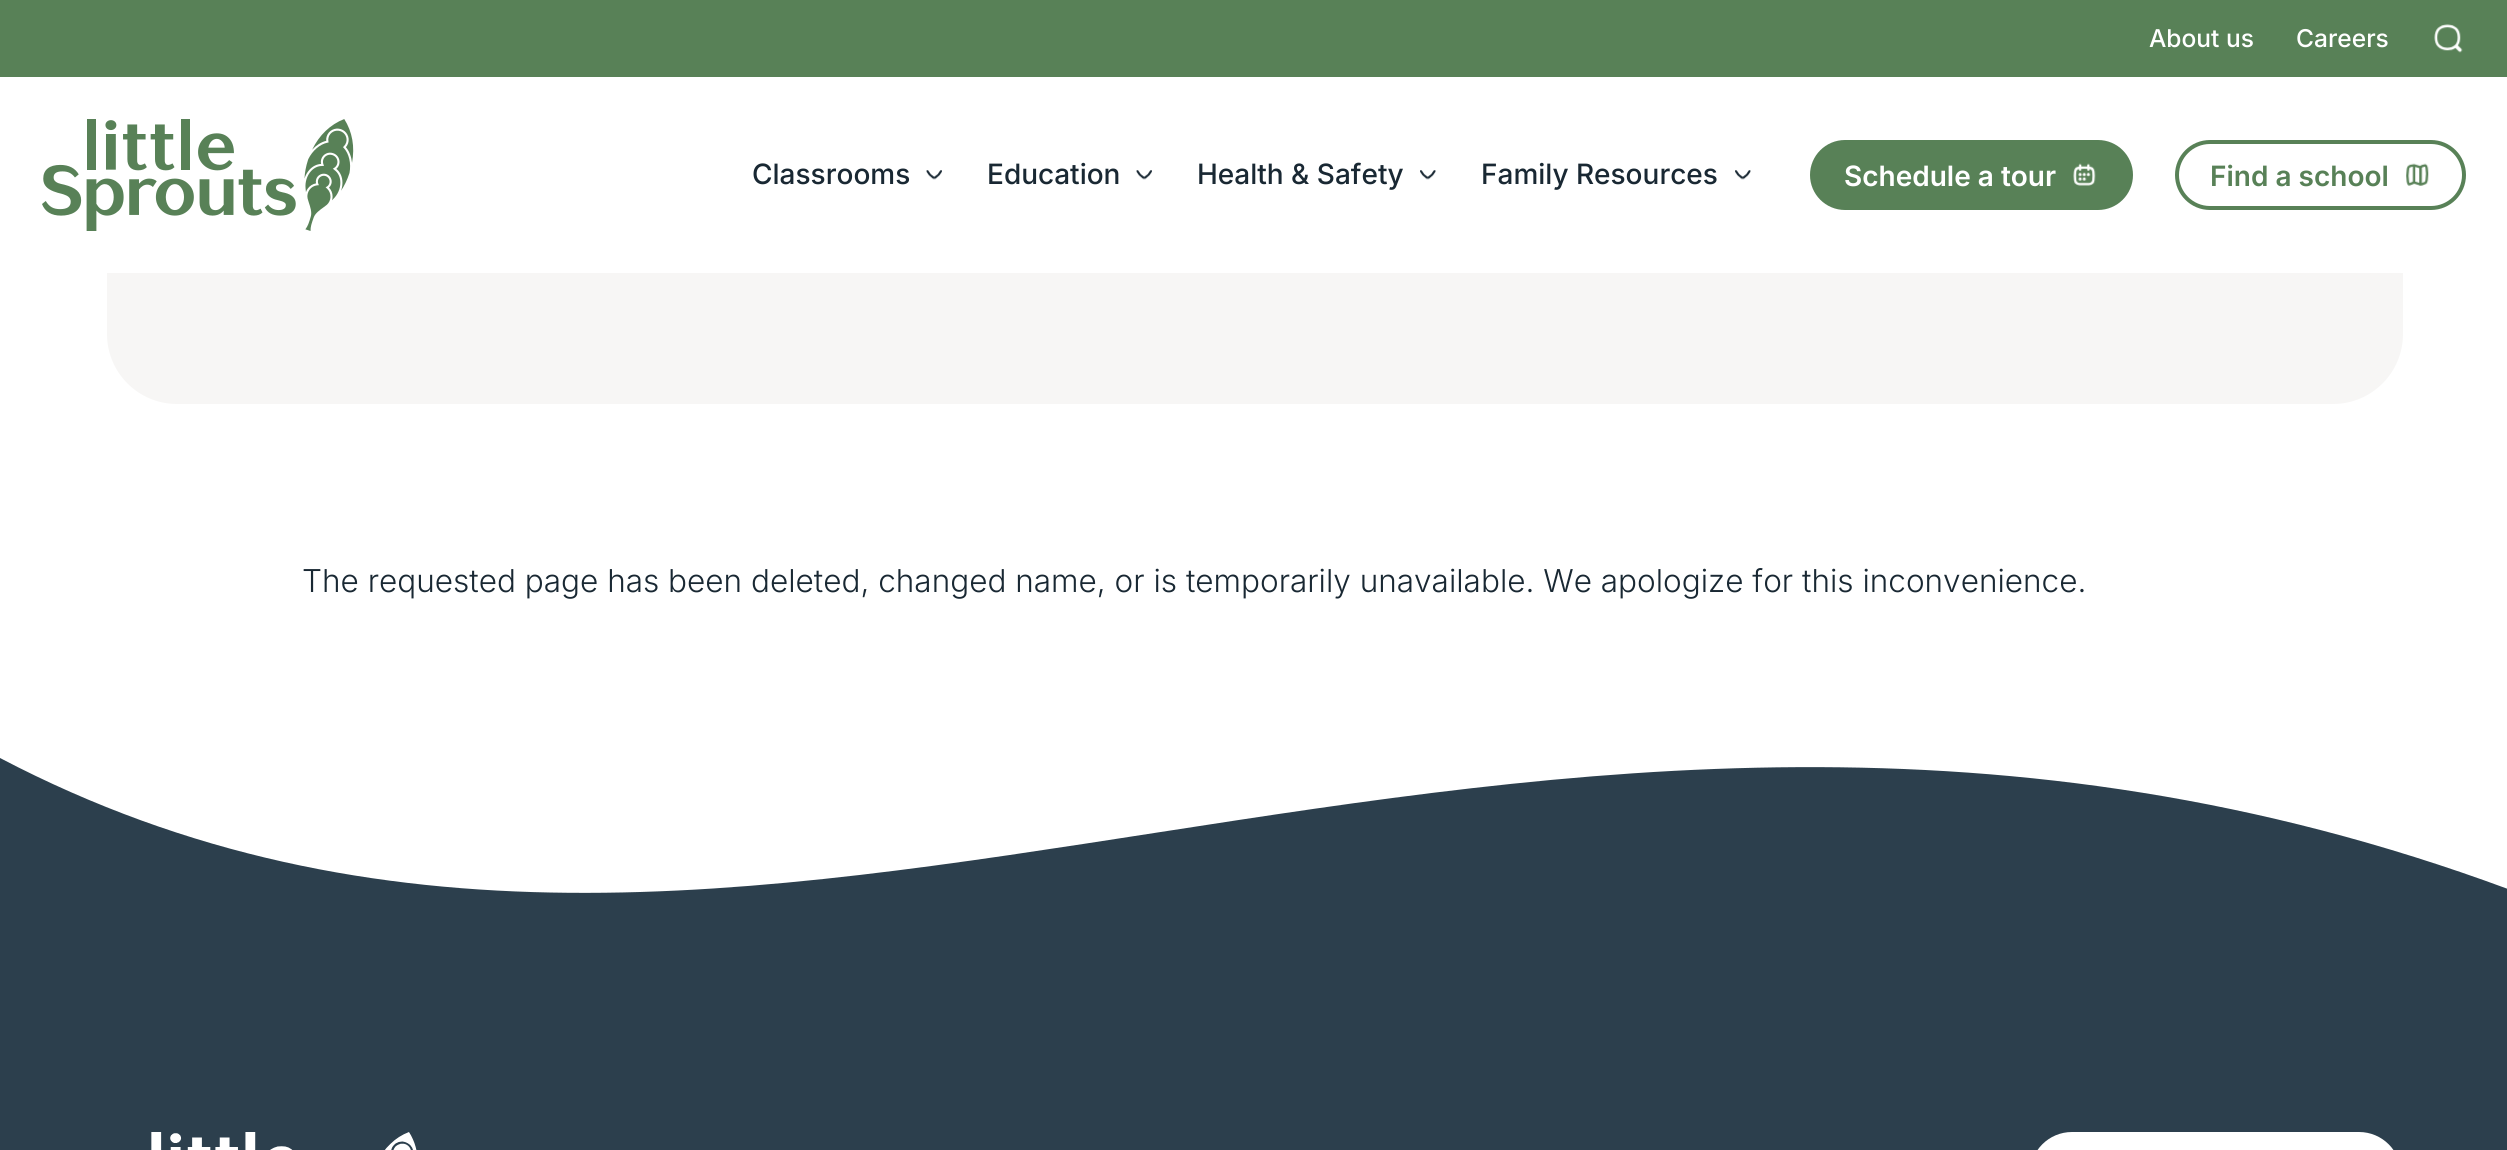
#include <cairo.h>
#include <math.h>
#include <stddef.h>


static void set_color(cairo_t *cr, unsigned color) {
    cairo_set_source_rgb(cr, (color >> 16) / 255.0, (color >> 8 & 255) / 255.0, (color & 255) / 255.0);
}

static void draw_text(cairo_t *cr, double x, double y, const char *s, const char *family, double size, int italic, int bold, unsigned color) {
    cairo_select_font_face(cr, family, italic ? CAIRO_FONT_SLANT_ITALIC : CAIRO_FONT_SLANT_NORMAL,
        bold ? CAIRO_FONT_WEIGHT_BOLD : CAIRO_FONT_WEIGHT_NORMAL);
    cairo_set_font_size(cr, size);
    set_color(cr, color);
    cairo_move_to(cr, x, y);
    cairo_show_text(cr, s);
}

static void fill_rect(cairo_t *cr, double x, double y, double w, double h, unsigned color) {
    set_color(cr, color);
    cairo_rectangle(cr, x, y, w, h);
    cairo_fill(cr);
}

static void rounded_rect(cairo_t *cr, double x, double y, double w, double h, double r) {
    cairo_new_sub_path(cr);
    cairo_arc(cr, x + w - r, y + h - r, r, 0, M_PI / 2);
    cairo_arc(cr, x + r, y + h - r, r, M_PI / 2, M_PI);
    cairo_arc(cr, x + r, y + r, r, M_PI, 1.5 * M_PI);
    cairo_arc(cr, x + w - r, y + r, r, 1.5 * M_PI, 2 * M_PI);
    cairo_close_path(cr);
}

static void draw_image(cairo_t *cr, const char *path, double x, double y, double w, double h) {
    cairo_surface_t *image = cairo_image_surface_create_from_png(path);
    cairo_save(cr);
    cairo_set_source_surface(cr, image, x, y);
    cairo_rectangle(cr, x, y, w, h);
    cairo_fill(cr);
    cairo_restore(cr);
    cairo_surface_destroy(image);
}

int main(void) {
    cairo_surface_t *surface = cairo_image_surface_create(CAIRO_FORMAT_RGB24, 2507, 1150);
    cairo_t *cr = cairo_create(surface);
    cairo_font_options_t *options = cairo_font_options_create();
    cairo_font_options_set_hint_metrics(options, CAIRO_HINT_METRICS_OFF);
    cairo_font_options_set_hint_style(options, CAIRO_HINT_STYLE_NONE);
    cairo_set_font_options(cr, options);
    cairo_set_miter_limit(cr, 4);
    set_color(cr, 0xFFFFFF);
    cairo_paint(cr);
    set_color(cr, 0xF7F6F5);
    rounded_rect(cr, 107, -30, 2296, 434, 70);
    cairo_fill(cr);
    fill_rect(cr, 107, 77, 2296, 196, 0xFFFFFF);
    fill_rect(cr, 0, 0, 2507, 77, 0x588157);
    draw_text(cr, 2149, 47, "About us", "Inter Medium", 24.5, 0, 0, 0xFFFFFF);
    draw_text(cr, 2296, 47, "Careers", "Inter Medium", 24.5, 0, 0, 0xFFFFFF);
    draw_image(cr, "assets/img1.png", 2434, 24, 29, 29);
    draw_image(cr, "assets/img2.png", 42, 119, 312, 112);
    draw_text(cr, 752, 184, "Classrooms", "Inter Medium", 28, 0, 0, 0x192833);
    draw_image(cr, "assets/img3.png", 926, 170, 16, 10);
    draw_text(cr, 987, 184, "Education", "Inter Medium", 28, 0, 0, 0x192833);
    draw_image(cr, "assets/img3.png", 1136, 170, 16, 10);
    draw_text(cr, 1197, 184, "Health & Safety", "Inter Medium", 28, 0, 0, 0x192833);
    draw_image(cr, "assets/img4.png", 1420, 170, 16, 10);
    draw_text(cr, 1481, 184, "Family Resources", "Inter Medium", 28, 0, 0, 0x192833);
    draw_image(cr, "assets/img5.png", 1735, 170, 16, 10);
    set_color(cr, 0x588157);
    rounded_rect(cr, 1810, 140, 323, 70, 35);
    cairo_fill(cr);
    draw_text(cr, 1844, 186, "Schedule a tour", "Inter SemiBold", 28, 0, 0, 0xFFFFFF);
    draw_image(cr, "assets/img6.png", 2073, 163, 23, 23);
    rounded_rect(cr, 2177, 142, 287, 66, 33);
    set_color(cr, 0x588157);
    cairo_set_line_width(cr, 4);
    cairo_stroke(cr);
    draw_text(cr, 2210, 186, "Find a school", "Inter SemiBold", 28, 0, 0, 0x588157);
    draw_image(cr, "assets/img7.png", 2406, 163, 23, 23);
    draw_text(cr, 302, 592, "The requested page has been deleted, changed name, or is temporarily unavailable. We apologize for this inconvenience.", "Inter Light", 31.5, 0, 0, 0x192833);
    set_color(cr, 0x2C3F4D);
    cairo_new_path(cr);
    cairo_move_to(cr, 0, 1031);
    cairo_line_to(cr, 0, 758);
    cairo_curve_to(cr, 754, 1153, 1503, 517, 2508, 889);
    cairo_line_to(cr, 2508, 1031);
    cairo_close_path(cr);
    cairo_fill(cr);
    fill_rect(cr, 0, 1031, 2507, 119, 0x2C3F4D);
    draw_image(cr, "assets/img8.png", 151, 1132, 266, 18);
    set_color(cr, 0xFFFFFF);
    rounded_rect(cr, 2030, 1132, 371, 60, 42);
    cairo_fill(cr);
    cairo_surface_write_to_png(surface, "output.png");
    cairo_font_options_destroy(options);
    cairo_destroy(cr);
    cairo_surface_destroy(surface);
    return 0;
}
